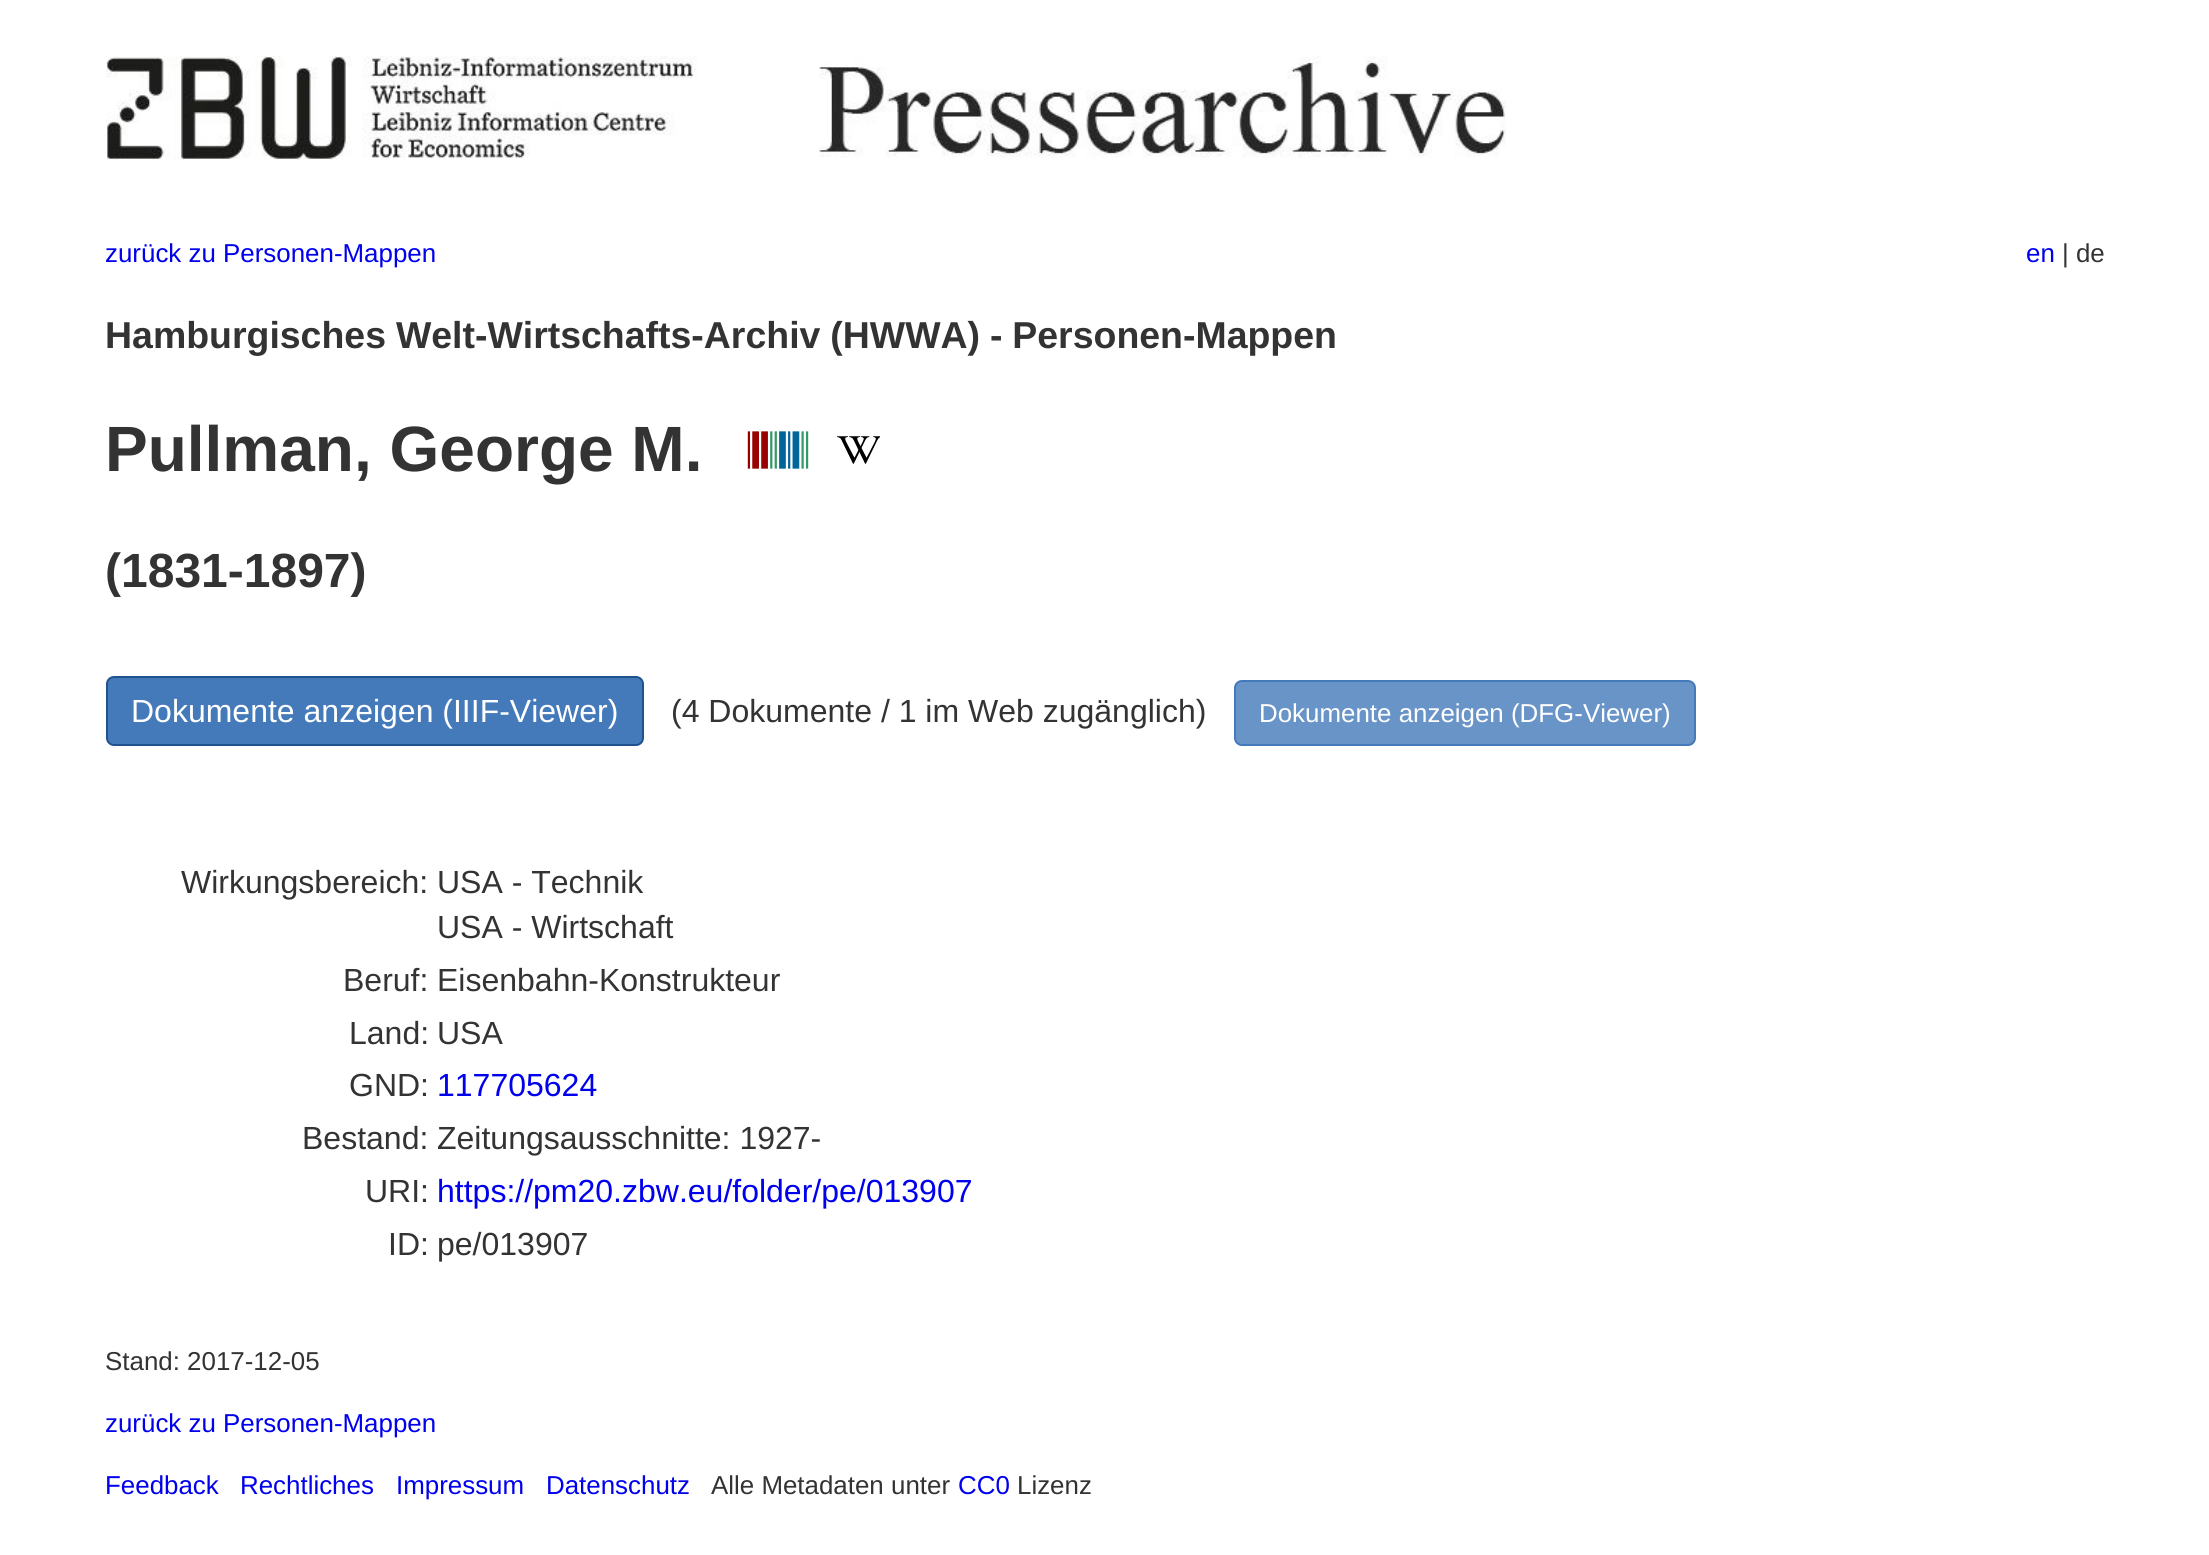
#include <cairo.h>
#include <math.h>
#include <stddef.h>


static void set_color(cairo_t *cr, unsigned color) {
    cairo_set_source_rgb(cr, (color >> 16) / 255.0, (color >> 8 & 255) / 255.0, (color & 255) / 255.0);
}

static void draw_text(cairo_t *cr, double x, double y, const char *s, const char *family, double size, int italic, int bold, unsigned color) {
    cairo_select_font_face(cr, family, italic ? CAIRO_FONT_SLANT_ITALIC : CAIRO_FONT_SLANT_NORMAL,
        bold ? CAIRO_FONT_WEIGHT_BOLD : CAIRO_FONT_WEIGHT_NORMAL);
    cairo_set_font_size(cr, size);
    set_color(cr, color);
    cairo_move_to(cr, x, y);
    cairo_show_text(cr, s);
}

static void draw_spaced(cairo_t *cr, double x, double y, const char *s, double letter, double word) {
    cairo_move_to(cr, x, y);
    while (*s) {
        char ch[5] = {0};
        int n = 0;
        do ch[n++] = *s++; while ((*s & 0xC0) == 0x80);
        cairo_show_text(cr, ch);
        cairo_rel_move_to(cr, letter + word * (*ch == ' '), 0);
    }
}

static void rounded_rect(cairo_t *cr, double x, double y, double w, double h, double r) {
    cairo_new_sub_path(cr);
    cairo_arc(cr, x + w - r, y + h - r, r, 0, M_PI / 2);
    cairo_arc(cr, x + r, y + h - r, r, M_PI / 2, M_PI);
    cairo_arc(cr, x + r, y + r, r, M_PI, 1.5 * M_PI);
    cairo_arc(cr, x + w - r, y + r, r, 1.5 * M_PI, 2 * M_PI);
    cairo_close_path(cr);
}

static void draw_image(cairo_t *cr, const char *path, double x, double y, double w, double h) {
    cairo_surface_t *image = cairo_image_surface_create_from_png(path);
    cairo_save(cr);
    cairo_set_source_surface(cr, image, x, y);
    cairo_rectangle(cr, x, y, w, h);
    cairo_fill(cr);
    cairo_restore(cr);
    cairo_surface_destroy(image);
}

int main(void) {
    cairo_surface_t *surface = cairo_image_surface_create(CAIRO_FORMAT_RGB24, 2209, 1555);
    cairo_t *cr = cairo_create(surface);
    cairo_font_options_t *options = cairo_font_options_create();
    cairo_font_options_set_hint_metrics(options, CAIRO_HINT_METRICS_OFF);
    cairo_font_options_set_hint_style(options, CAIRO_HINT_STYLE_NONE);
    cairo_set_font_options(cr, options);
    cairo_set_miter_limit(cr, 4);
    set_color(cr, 0xFFFFFF);
    cairo_paint(cr);
    draw_image(cr, "assets/img1.png", 106, 56, 1400, 104);
    draw_text(cr, 105, 262, "zurück zu Personen-Mappen", "Liberation Sans", 25.9, 0, 0, 0x0000EE);
    draw_text(cr, 2026, 262, "en", "Liberation Sans", 25.9, 0, 0, 0x0000EE);
    draw_text(cr, 2062, 262, "| de", "Liberation Sans", 25.9, 0, 0, 0x333333);
    cairo_select_font_face(cr, "Liberation Sans", CAIRO_FONT_SLANT_NORMAL, CAIRO_FONT_WEIGHT_BOLD);
    cairo_set_font_size(cr, 37.45);
    draw_spaced(cr, 105, 348, "Hamburgisches Welt-Wirtschafts-Archiv (HWWA) - Personen-Mappen", 0, -0.5);
    draw_text(cr, 105, 471, "Pullman, George M.", "Liberation Sans", 64, 0, 1, 0x333333);
    draw_image(cr, "assets/img2.png", 747, 431, 62, 38);
    draw_image(cr, "assets/img3.png", 837, 436, 43, 28);
    draw_text(cr, 105, 587, "(1831-1897)", "Liberation Sans", 48, 0, 1, 0x333333);
    set_color(cr, 0x4479BA);
    rounded_rect(cr, 107, 677, 536, 68, 7);
    cairo_fill_preserve(cr);
    set_color(cr, 0x20538D);
    cairo_stroke(cr);
    draw_text(cr, 131, 722, "Dokumente anzeigen (IIIF-Viewer)", "Liberation Sans", 32, 0, 0, 0xFFFFFF);
    draw_text(cr, 671, 722, "(4 Dokumente / 1 im Web zugänglich)", "Liberation Sans", 32, 0, 0, 0x333333);
    set_color(cr, 0x6994C8);
    rounded_rect(cr, 1235, 681, 460, 64, 7);
    cairo_fill_preserve(cr);
    set_color(cr, 0x4479BA);
    cairo_stroke(cr);
    draw_text(cr, 1259, 722, "Dokumente anzeigen (DFG-Viewer)", "Liberation Sans", 25.9, 0, 0, 0xFFFFFF);
    draw_text(cr, 181, 893, "Wirkungsbereich:", "Liberation Sans", 32, 0, 0, 0x333333);
    draw_text(cr, 437, 893, "USA - Technik", "Liberation Sans", 32, 0, 0, 0x333333);
    draw_text(cr, 437, 938, "USA - Wirtschaft", "Liberation Sans", 32, 0, 0, 0x333333);
    draw_text(cr, 343, 991, "Beruf:", "Liberation Sans", 32, 0, 0, 0x333333);
    draw_text(cr, 437, 991, "Eisenbahn-Konstrukteur", "Liberation Sans", 32, 0, 0, 0x333333);
    draw_text(cr, 349, 1044, "Land:", "Liberation Sans", 32, 0, 0, 0x333333);
    draw_text(cr, 437, 1044, "USA", "Liberation Sans", 32, 0, 0, 0x333333);
    draw_text(cr, 349, 1096, "GND:", "Liberation Sans", 32, 0, 0, 0x333333);
    draw_text(cr, 437, 1096, "117705624", "Liberation Sans", 32, 0, 0, 0x0000EE);
    draw_text(cr, 302, 1149, "Bestand:", "Liberation Sans", 32, 0, 0, 0x333333);
    draw_text(cr, 437, 1149, "Zeitungsausschnitte: 1927-", "Liberation Sans", 32, 0, 0, 0x333333);
    draw_text(cr, 365, 1202, "URI:", "Liberation Sans", 32, 0, 0, 0x333333);
    draw_text(cr, 437, 1202, "https://pm20.zbw.eu/folder/pe/013907", "Liberation Sans", 32, 0, 0, 0x0000EE);
    draw_text(cr, 388, 1255, "ID:", "Liberation Sans", 32, 0, 0, 0x333333);
    draw_text(cr, 437, 1255, "pe/013907", "Liberation Sans", 32, 0, 0, 0x333333);
    draw_text(cr, 105, 1370, "Stand: 2017-12-05", "Liberation Sans", 25.9, 0, 0, 0x333333);
    draw_text(cr, 105, 1432, "zurück zu Personen-Mappen", "Liberation Sans", 25.9, 0, 0, 0x0000EE);
    draw_text(cr, 105, 1494, "Feedback", "Liberation Sans", 25.9, 0, 0, 0x0000EE);
    draw_text(cr, 240, 1494, "Rechtliches", "Liberation Sans", 25.9, 0, 0, 0x0000EE);
    draw_text(cr, 396, 1494, "Impressum", "Liberation Sans", 25.9, 0, 0, 0x0000EE);
    draw_text(cr, 546, 1494, "Datenschutz", "Liberation Sans", 25.9, 0, 0, 0x0000EE);
    draw_text(cr, 711, 1494, "Alle Metadaten unter", "Liberation Sans", 25.9, 0, 0, 0x333333);
    draw_text(cr, 958, 1494, "CC0", "Liberation Sans", 25.9, 0, 0, 0x0000EE);
    draw_text(cr, 1017, 1494, "Lizenz", "Liberation Sans", 25.9, 0, 0, 0x333333);
    cairo_surface_write_to_png(surface, "output.png");
    cairo_font_options_destroy(options);
    cairo_destroy(cr);
    cairo_surface_destroy(surface);
    return 0;
}
